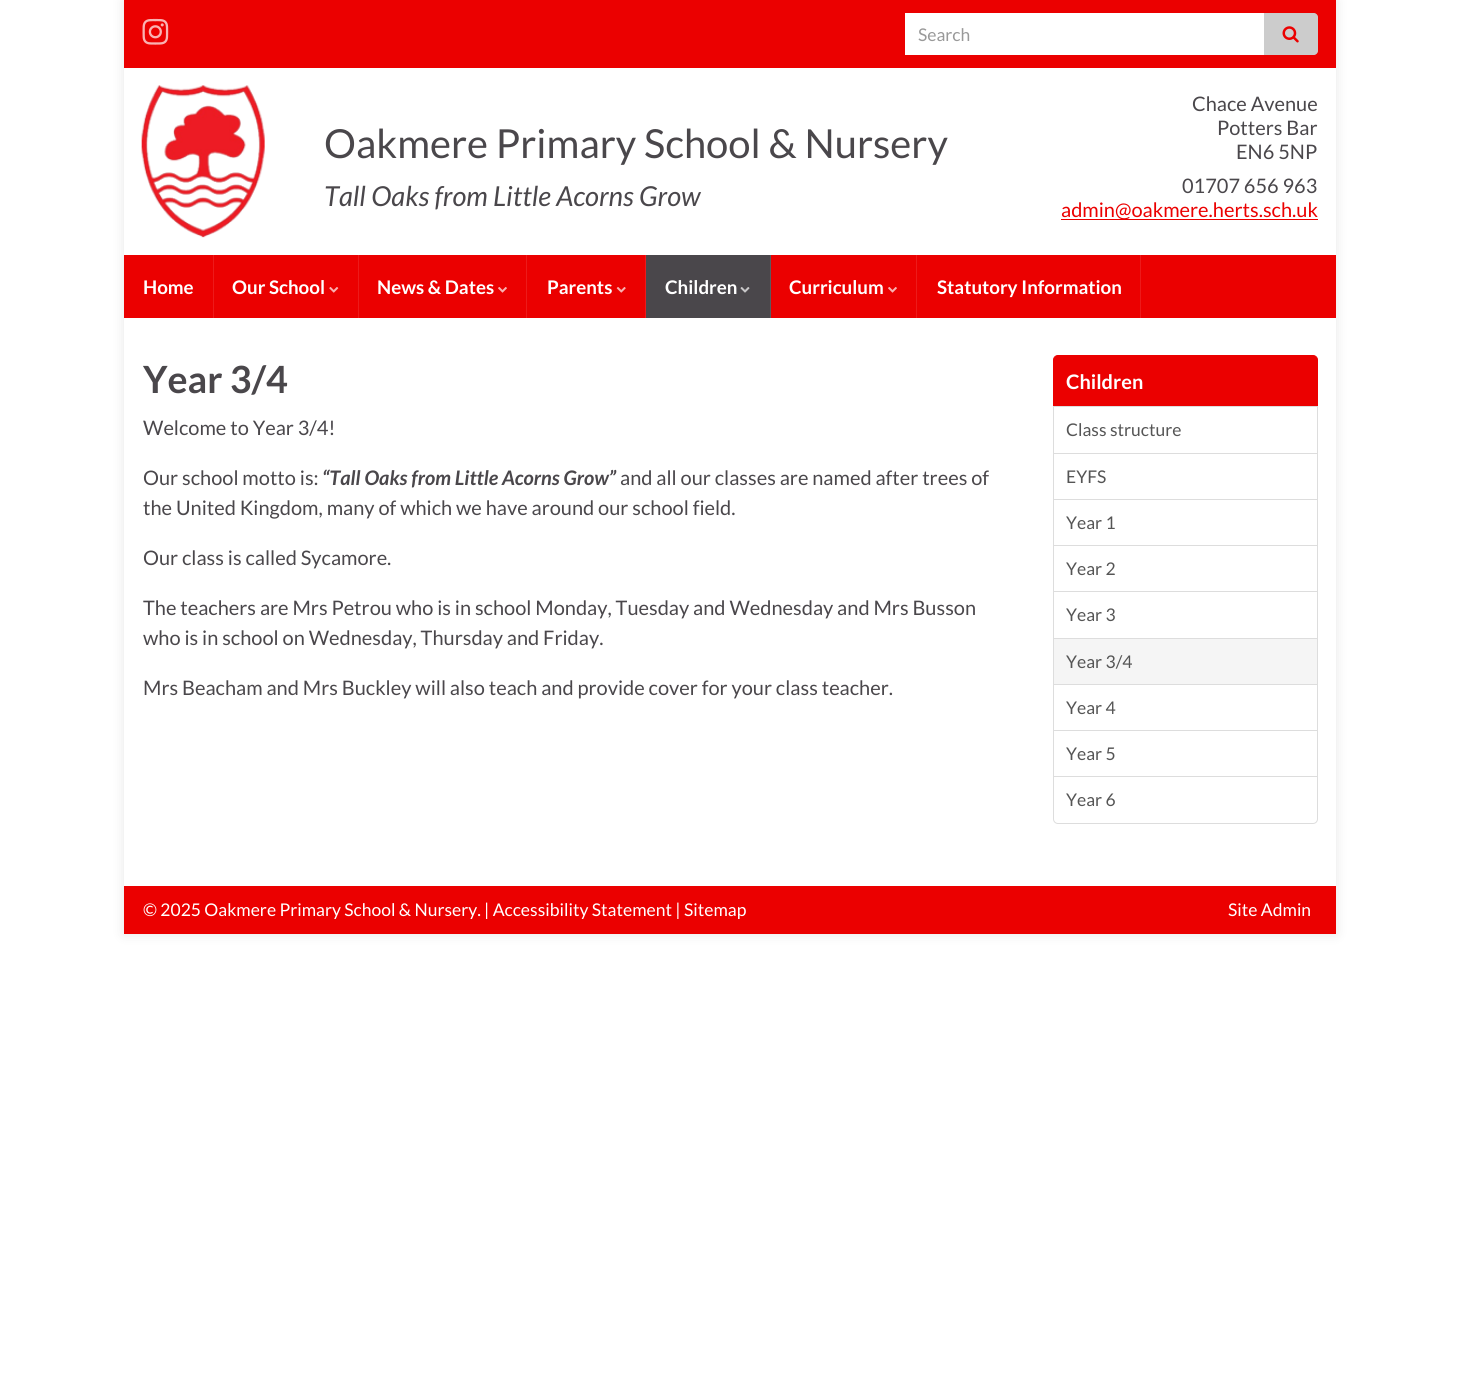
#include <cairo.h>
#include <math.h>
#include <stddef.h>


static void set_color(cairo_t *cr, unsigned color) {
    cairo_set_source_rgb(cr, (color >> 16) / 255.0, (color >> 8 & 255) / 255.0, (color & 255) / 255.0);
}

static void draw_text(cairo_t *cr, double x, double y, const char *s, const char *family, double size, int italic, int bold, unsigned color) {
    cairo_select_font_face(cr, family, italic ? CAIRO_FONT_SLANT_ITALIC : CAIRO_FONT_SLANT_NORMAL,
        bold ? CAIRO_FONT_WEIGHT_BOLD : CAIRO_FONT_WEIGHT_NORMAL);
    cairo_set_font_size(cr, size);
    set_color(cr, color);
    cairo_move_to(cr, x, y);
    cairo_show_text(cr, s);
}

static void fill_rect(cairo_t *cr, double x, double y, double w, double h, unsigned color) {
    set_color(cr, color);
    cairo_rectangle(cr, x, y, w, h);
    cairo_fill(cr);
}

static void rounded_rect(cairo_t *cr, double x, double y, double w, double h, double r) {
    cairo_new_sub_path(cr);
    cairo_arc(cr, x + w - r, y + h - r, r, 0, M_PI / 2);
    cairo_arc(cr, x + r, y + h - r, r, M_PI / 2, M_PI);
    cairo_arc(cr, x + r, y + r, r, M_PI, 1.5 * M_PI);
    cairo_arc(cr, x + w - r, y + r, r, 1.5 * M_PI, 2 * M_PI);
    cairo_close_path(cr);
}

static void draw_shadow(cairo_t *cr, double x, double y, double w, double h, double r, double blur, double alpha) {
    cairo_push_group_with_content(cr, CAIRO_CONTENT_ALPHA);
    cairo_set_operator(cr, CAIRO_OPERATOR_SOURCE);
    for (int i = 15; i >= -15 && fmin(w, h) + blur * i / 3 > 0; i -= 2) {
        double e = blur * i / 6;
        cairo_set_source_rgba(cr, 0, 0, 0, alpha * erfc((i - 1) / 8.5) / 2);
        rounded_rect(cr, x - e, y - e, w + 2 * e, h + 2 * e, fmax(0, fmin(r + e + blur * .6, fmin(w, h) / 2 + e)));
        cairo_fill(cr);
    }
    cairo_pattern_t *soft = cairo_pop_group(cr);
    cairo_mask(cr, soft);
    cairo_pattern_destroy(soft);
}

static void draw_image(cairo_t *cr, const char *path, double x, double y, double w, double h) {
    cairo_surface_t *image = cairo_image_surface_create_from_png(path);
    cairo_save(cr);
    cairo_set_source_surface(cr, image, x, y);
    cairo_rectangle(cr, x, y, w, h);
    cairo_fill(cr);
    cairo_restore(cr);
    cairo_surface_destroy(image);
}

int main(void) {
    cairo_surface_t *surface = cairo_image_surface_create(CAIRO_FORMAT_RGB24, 1459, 1399);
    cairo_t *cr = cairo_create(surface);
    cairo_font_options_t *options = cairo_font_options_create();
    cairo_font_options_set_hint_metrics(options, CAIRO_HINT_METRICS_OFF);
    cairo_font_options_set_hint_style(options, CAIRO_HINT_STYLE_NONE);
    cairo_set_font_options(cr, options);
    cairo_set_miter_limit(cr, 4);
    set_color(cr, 0xFFFFFF);
    cairo_paint(cr);
    cairo_save(cr);
    cairo_set_fill_rule(cr, CAIRO_FILL_RULE_EVEN_ODD);
    cairo_new_path(cr);
    cairo_move_to(cr, 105, 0);
    cairo_line_to(cr, 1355, 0);
    cairo_line_to(cr, 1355, 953);
    cairo_line_to(cr, 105, 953);
    cairo_close_path(cr);
    cairo_move_to(cr, 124, 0);
    cairo_line_to(cr, 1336, 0);
    cairo_line_to(cr, 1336, 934);
    cairo_line_to(cr, 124, 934);
    cairo_close_path(cr);
    cairo_clip(cr);
    set_color(cr, 0x000000);
    draw_shadow(cr, 124, 0, 1212, 934, 0, 6, 0.1);
    cairo_restore(cr);
    fill_rect(cr, 124, 0, 1212, 68, 0xEB0000);
    draw_image(cr, "assets/img1.png", 142, 18, 27, 27);
    fill_rect(cr, 905, 13, 359, 42, 0xFFFFFF);
    draw_text(cr, 918, 41, "Search", "Lato", 17.5, 0, 0, 0x999999);
    set_color(cr, 0xCCCCCC);
    cairo_new_path(cr);
    cairo_move_to(cr, 1264, 13);
    cairo_line_to(cr, 1314, 13);
    cairo_curve_to(cr, 1316, 13, 1318, 15, 1318, 17);
    cairo_line_to(cr, 1318, 51);
    cairo_curve_to(cr, 1318, 53, 1316, 55, 1314, 55);
    cairo_line_to(cr, 1264, 55);
    cairo_close_path(cr);
    cairo_fill(cr);
    draw_image(cr, "assets/img2.png", 1282, 26, 17, 17);
    fill_rect(cr, 124, 255, 1212, 63, 0xEB0000);
    draw_text(cr, 324, 158, "Oakmere Primary School & Nursery", "Lato", 40, 0, 0, 0x4A474B);
    draw_text(cr, 324, 206, "Tall Oaks from Little Acorns Grow", "Lato", 27.5, 1, 0, 0x4A474B);
    fill_rect(cr, 213, 255, 1, 63, 0xED1A1A);
    draw_text(cr, 143, 294, "Home", "Lato", 18.75, 0, 1, 0xFFFFFF);
    fill_rect(cr, 358, 255, 1, 63, 0xED1A1A);
    draw_text(cr, 232, 294, "Our School", "Lato", 18.75, 0, 1, 0xFFFFFF);
    draw_image(cr, "assets/img3.png", 329, 287, 10, 6);
    fill_rect(cr, 526, 255, 1, 63, 0xED1A1A);
    draw_text(cr, 377, 294, "News & Dates", "Lato", 18.75, 0, 1, 0xFFFFFF);
    draw_image(cr, "assets/img4.png", 498, 287, 9, 6);
    fill_rect(cr, 645, 255, 1, 63, 0xED1A1A);
    draw_text(cr, 547, 294, "Parents", "Lato", 18.75, 0, 1, 0xFFFFFF);
    draw_image(cr, "assets/img5.png", 616, 287, 10, 6);
    fill_rect(cr, 646, 255, 124, 63, 0x4A474B);
    fill_rect(cr, 770, 255, 1, 63, 0x5C595D);
    draw_text(cr, 665, 294, "Children", "Lato", 18.75, 0, 1, 0xFFFFFF);
    draw_image(cr, "assets/img6.png", 740, 287, 10, 6);
    fill_rect(cr, 916, 255, 1, 63, 0xED1A1A);
    draw_text(cr, 789, 294, "Curriculum", "Lato", 18.75, 0, 1, 0xFFFFFF);
    draw_image(cr, "assets/img4.png", 888, 287, 9, 6);
    fill_rect(cr, 1140, 255, 1, 63, 0xED1A1A);
    draw_text(cr, 937, 294, "Statutory Information", "Lato", 18.75, 0, 1, 0xFFFFFF);
    draw_image(cr, "assets/img7.png", 141, 85, 124, 153);
    draw_text(cr, 1192, 111, "Chace Avenue", "Lato", 20, 0, 0, 0x4A474B);
    draw_text(cr, 1217, 135, "Potters Bar", "Lato", 20, 0, 0, 0x4A474B);
    draw_text(cr, 1236, 159, "EN6 5NP", "Lato", 20, 0, 0, 0x4A474B);
    draw_text(cr, 1182, 193, "01707 656 963", "Lato", 20, 0, 0, 0x4A474B);
    fill_rect(cr, 1061, 219, 257, 1, 0xEB0000);
    draw_text(cr, 1061, 217, "admin@oakmere.herts.sch.uk", "Lato", 20, 0, 0, 0xEB0000);
    draw_text(cr, 143, 393, "Year 3/4", "Lato", 37.5, 0, 1, 0x4A474B);
    draw_text(cr, 143, 435, "Welcome to Year 3/4!", "Lato", 20, 0, 0, 0x4A474B);
    draw_text(cr, 143, 485, "Our school motto is:", "Lato", 20, 0, 0, 0x4A474B);
    draw_text(cr, 322, 485, "“Tall Oaks from Little Acorns Grow”", "Lato", 20, 1, 1, 0x4A474B);
    draw_text(cr, 620, 485, "and all our classes are named after trees of", "Lato", 20, 0, 0, 0x4A474B);
    draw_text(cr, 143, 515, "the United Kingdom, many of which we have around our school field.", "Lato", 20, 0, 0, 0x4A474B);
    draw_text(cr, 143, 565, "Our class is called Sycamore.", "Lato", 20, 0, 0, 0x4A474B);
    draw_text(cr, 143, 615, "The teachers are Mrs Petrou who is in school Monday, Tuesday and Wednesday and Mrs Busson", "Lato", 20, 0, 0, 0x4A474B);
    draw_text(cr, 143, 645, "who is in school on Wednesday, Thursday and Friday.", "Lato", 20, 0, 0, 0x4A474B);
    draw_text(cr, 143, 695, "Mrs Beacham and Mrs Buckley will also teach and provide cover for your class teacher.", "Lato", 20, 0, 0, 0x4A474B);
    set_color(cr, 0xEB0000);
    cairo_new_path(cr);
    cairo_move_to(cr, 1058, 355.5);
    cairo_line_to(cr, 1313, 355.5);
    cairo_curve_to(cr, 1315.5, 355.5, 1317.5, 357.5, 1317.5, 360);
    cairo_line_to(cr, 1317.5, 407.5);
    cairo_line_to(cr, 1053.5, 407.5);
    cairo_line_to(cr, 1053.5, 360);
    cairo_curve_to(cr, 1053.5, 357.5, 1055.5, 355.5, 1058, 355.5);
    cairo_close_path(cr);
    cairo_fill_preserve(cr);
    cairo_set_line_width(cr, 1);
    cairo_stroke(cr);
    draw_text(cr, 1066, 389, "Children", "Lato", 20, 0, 1, 0xFFFFFF);
    fill_rect(cr, 1054, 407, 263, 1, 0xFFFFFF);
    cairo_rectangle(cr, 1053.5, 406.5, 264, 47);
    set_color(cr, 0xDDDDDD);
    cairo_stroke(cr);
    draw_text(cr, 1066, 436, "Class structure", "Lato", 17.5, 0, 0, 0x555555);
    cairo_rectangle(cr, 1053.5, 453.5, 264, 46);
    set_color(cr, 0xDDDDDD);
    cairo_stroke(cr);
    draw_text(cr, 1066, 483, "EYFS", "Lato", 17.5, 0, 0, 0x555555);
    cairo_rectangle(cr, 1053.5, 499.5, 264, 46);
    set_color(cr, 0xDDDDDD);
    cairo_stroke(cr);
    draw_text(cr, 1066, 529, "Year 1", "Lato", 17.5, 0, 0, 0x555555);
    cairo_rectangle(cr, 1053.5, 545.5, 264, 47);
    set_color(cr, 0xDDDDDD);
    cairo_stroke(cr);
    draw_text(cr, 1066, 575, "Year 2", "Lato", 17.5, 0, 0, 0x555555);
    fill_rect(cr, 1054, 592, 263, 1, 0xFFFFFF);
    cairo_rectangle(cr, 1053.5, 591.5, 264, 47);
    set_color(cr, 0xDDDDDD);
    cairo_stroke(cr);
    draw_text(cr, 1066, 621, "Year 3", "Lato", 17.5, 0, 0, 0x555555);
    cairo_rectangle(cr, 1053.5, 684.5, 264, 46);
    set_color(cr, 0xDDDDDD);
    cairo_stroke(cr);
    set_color(cr, 0xF5F5F5);
    cairo_rectangle(cr, 1053.5, 638.5, 264, 46);
    cairo_fill_preserve(cr);
    set_color(cr, 0xDDDDDD);
    cairo_stroke(cr);
    draw_text(cr, 1066, 668, "Year 3/4", "Lato", 17.5, 0, 0, 0x555555);
    draw_text(cr, 1066, 714, "Year 4", "Lato", 17.5, 0, 0, 0x555555);
    cairo_rectangle(cr, 1053.5, 730.5, 264, 47);
    set_color(cr, 0xDDDDDD);
    cairo_stroke(cr);
    draw_text(cr, 1066, 760, "Year 5", "Lato", 17.5, 0, 0, 0x555555);
    set_color(cr, 0xFFFFFF);
    cairo_new_path(cr);
    cairo_move_to(cr, 1053.5, 776.5);
    cairo_line_to(cr, 1317.5, 776.5);
    cairo_line_to(cr, 1317.5, 819);
    cairo_curve_to(cr, 1317.5, 821.5, 1315.5, 823.5, 1313, 823.5);
    cairo_line_to(cr, 1058, 823.5);
    cairo_curve_to(cr, 1055.5, 823.5, 1053.5, 821.5, 1053.5, 819);
    cairo_close_path(cr);
    cairo_fill_preserve(cr);
    set_color(cr, 0xDDDDDD);
    cairo_stroke(cr);
    draw_text(cr, 1066, 806, "Year 6", "Lato", 17.5, 0, 0, 0x555555);
    fill_rect(cr, 124, 886, 1212, 48, 0xEB0000);
    draw_text(cr, 143, 916, "© 2025 Oakmere Primary School & Nursery.", "Lato", 17.5, 0, 0, 0xFFFFFF);
    draw_text(cr, 484, 916, "| Accessibility Statement | Sitemap", "Lato", 17.5, 0, 0, 0xFFFFFF);
    draw_text(cr, 1228, 916, "Site Admin", "Lato", 17.5, 0, 0, 0xFFFFFF);
    cairo_surface_write_to_png(surface, "output.png");
    cairo_font_options_destroy(options);
    cairo_destroy(cr);
    cairo_surface_destroy(surface);
    return 0;
}
